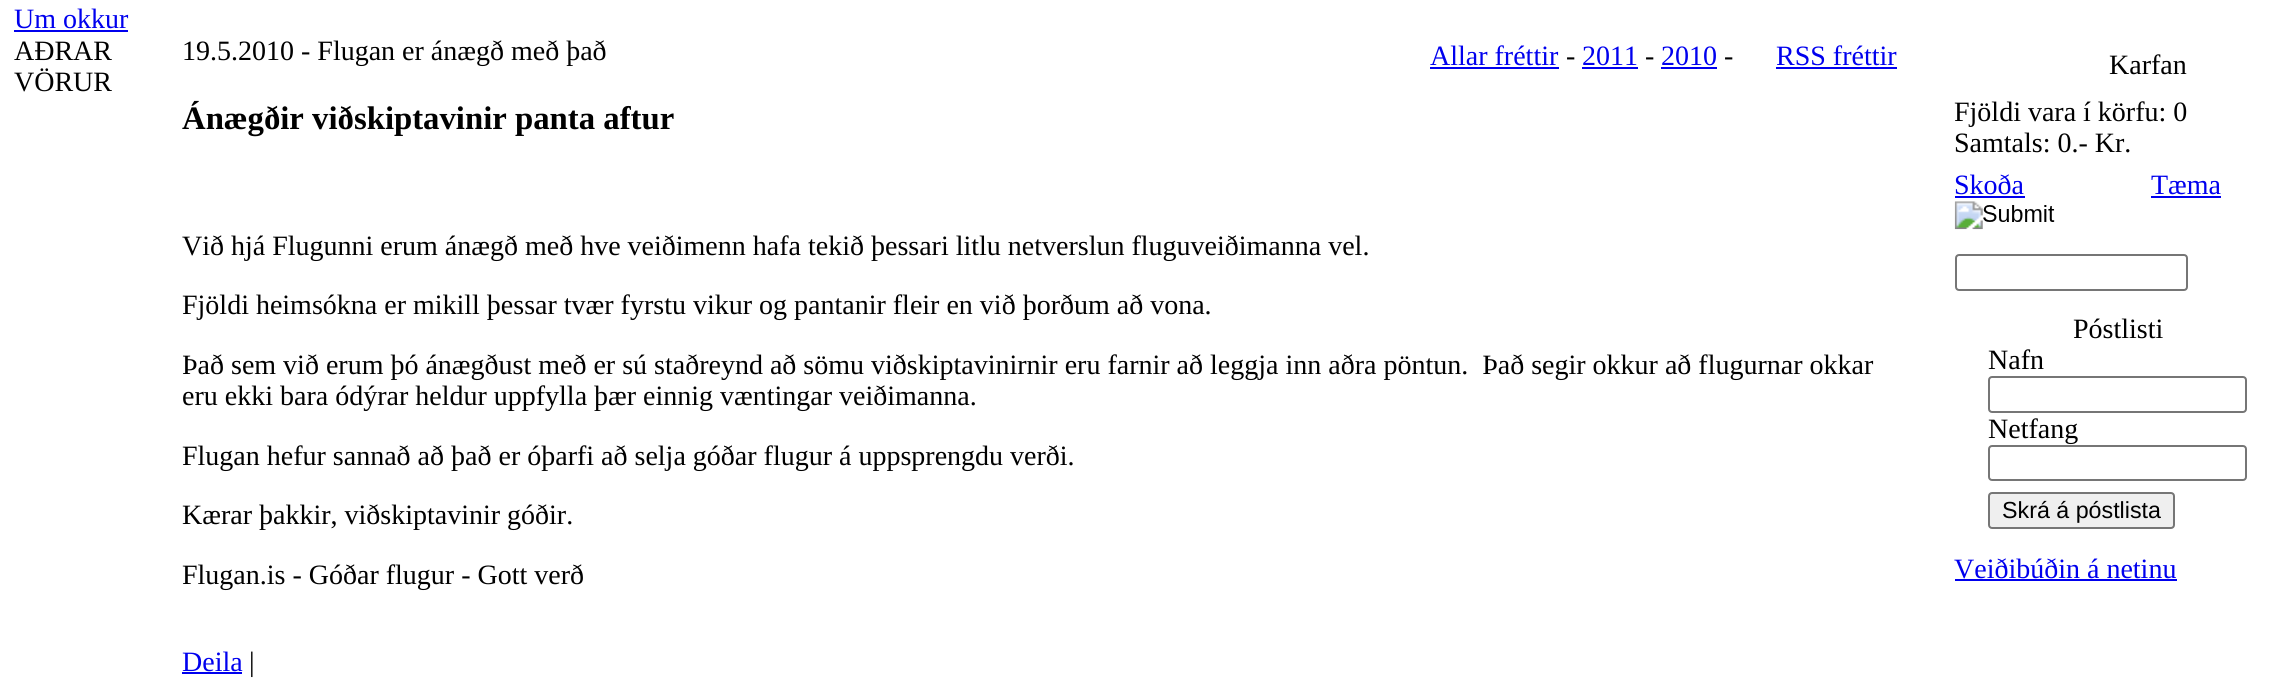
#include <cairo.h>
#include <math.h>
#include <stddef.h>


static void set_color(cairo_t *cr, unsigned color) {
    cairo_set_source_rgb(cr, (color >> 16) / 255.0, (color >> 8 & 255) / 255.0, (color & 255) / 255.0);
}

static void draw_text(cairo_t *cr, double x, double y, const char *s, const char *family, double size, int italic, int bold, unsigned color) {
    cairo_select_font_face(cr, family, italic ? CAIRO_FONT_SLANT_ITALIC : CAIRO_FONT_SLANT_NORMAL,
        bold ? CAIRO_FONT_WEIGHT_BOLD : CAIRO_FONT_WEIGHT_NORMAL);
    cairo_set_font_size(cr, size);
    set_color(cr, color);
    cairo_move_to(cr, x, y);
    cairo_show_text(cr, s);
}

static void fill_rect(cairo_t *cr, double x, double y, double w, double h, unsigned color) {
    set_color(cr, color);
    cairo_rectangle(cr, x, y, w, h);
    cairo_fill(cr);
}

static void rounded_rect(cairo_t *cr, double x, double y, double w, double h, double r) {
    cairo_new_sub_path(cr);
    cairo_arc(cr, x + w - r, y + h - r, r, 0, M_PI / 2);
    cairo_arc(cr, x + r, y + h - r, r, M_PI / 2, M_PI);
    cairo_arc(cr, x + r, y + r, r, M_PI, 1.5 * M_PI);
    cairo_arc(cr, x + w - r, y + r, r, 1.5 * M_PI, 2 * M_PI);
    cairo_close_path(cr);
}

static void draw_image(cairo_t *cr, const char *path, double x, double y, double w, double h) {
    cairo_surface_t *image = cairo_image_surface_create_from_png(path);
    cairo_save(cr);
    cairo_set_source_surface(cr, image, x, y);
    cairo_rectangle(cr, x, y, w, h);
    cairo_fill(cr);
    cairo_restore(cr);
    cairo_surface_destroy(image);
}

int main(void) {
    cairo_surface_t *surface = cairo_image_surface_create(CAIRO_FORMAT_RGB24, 2295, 688);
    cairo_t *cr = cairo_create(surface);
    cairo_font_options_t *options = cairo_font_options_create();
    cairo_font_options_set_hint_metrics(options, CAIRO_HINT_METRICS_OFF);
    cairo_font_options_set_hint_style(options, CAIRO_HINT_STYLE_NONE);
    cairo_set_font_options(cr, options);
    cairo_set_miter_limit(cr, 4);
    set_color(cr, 0xFFFFFF);
    cairo_paint(cr);
    draw_text(cr, 14, 28, "Um okkur", "Liberation Serif", 28, 0, 0, 0x0000EE);
    fill_rect(cr, 14, 30, 114, 2, 0x0000EE);
    draw_text(cr, 14, 60, "AÐRAR", "Liberation Serif", 28, 0, 0, 0x000000);
    draw_text(cr, 14, 91, "VÖRUR", "Liberation Serif", 28, 0, 0, 0x000000);
    draw_text(cr, 182, 60, "19.5.2010 - Flugan er ánægð með það", "Liberation Serif", 28, 0, 0, 0x000000);
    draw_text(cr, 1430, 65, "Allar fréttir", "Liberation Serif", 28, 0, 0, 0x0000EE);
    fill_rect(cr, 1430, 67, 129, 2, 0x0000EE);
    draw_text(cr, 1566, 65, "-", "Liberation Serif", 28, 0, 0, 0x000000);
    draw_text(cr, 1582, 65, "2011", "Liberation Serif", 28, 0, 0, 0x0000EE);
    fill_rect(cr, 1582, 67, 56, 2, 0x0000EE);
    draw_text(cr, 1645, 65, "-", "Liberation Serif", 28, 0, 0, 0x000000);
    draw_text(cr, 1661, 65, "2010", "Liberation Serif", 28, 0, 0, 0x0000EE);
    fill_rect(cr, 1661, 67, 56, 2, 0x0000EE);
    draw_text(cr, 1724, 65, "-", "Liberation Serif", 28, 0, 0, 0x000000);
    draw_text(cr, 1776, 65, "RSS fréttir", "Liberation Serif", 28, 0, 0, 0x0000EE);
    fill_rect(cr, 1776, 67, 121, 2, 0x0000EE);
    draw_text(cr, 182, 129, "Ánægðir viðskiptavinir panta aftur", "Liberation Serif", 32.75, 0, 1, 0x000000);
    draw_text(cr, 182, 255, "Við hjá Flugunni erum ánægð með hve veiðimenn hafa tekið þessari litlu netverslun fluguveiðimanna vel.", "Liberation Serif", 28, 0, 0, 0x000000);
    draw_text(cr, 182, 314, "Fjöldi heimsókna er mikill þessar tvær fyrstu vikur og pantanir fleir en við þorðum að vona.", "Liberation Serif", 28, 0, 0, 0x000000);
    draw_text(cr, 182, 374, "Það sem við erum þó ánægðust með er sú staðreynd að sömu viðskiptavinirnir eru farnir að leggja inn aðra pöntun.  Það segir okkur að flugurnar okkar", "Liberation Serif", 28, 0, 0, 0x000000);
    draw_text(cr, 182, 405, "eru ekki bara ódýrar heldur uppfylla þær einnig væntingar veiðimanna.", "Liberation Serif", 28, 0, 0, 0x000000);
    draw_text(cr, 182, 465, "Flugan hefur sannað að það er óþarfi að selja góðar flugur á uppsprengdu verði.", "Liberation Serif", 28, 0, 0, 0x000000);
    draw_text(cr, 182, 524, "Kærar þakkir, viðskiptavinir góðir.", "Liberation Serif", 28, 0, 0, 0x000000);
    draw_text(cr, 182, 584, "Flugan.is - Góðar flugur - Gott verð", "Liberation Serif", 28, 0, 0, 0x000000);
    draw_text(cr, 182, 671, "Deila", "Liberation Serif", 28, 0, 0, 0x0000EE);
    fill_rect(cr, 182, 672, 60, 2, 0x0000EE);
    draw_text(cr, 249, 671, "|", "Liberation Serif", 28, 0, 0, 0x000000);
    draw_text(cr, 2109, 74, "Karfan", "Liberation Serif", 28, 0, 0, 0x000000);
    draw_text(cr, 1954, 121, "Fjöldi vara í körfu: 0", "Liberation Serif", 28, 0, 0, 0x000000);
    draw_text(cr, 1954, 152, "Samtals: 0.- Kr.", "Liberation Serif", 28, 0, 0, 0x000000);
    draw_text(cr, 1954, 194, "Skoða", "Liberation Serif", 28, 0, 0, 0x0000EE);
    fill_rect(cr, 1955, 196, 70, 2, 0x0000EE);
    draw_text(cr, 2151, 194, "Tæma", "Liberation Serif", 28, 0, 0, 0x0000EE);
    fill_rect(cr, 2151, 196, 70, 2, 0x0000EE);
    draw_image(cr, "assets/img1.png", 1954, 201, 101, 29);
    rounded_rect(cr, 1956, 255, 231, 35, 3);
    set_color(cr, 0x767676);
    cairo_stroke(cr);
    draw_text(cr, 2073, 338, "Póstlisti", "Liberation Serif", 28, 0, 0, 0x000000);
    draw_text(cr, 1988, 369, "Nafn", "Liberation Serif", 28, 0, 0, 0x000000);
    rounded_rect(cr, 1989, 377, 257, 35, 3);
    set_color(cr, 0x767676);
    cairo_stroke(cr);
    draw_text(cr, 1988, 438, "Netfang", "Liberation Serif", 28, 0, 0, 0x000000);
    rounded_rect(cr, 1989, 446, 257, 34, 3);
    set_color(cr, 0x767676);
    cairo_stroke(cr);
    set_color(cr, 0xEFEFEF);
    rounded_rect(cr, 1989, 493, 185, 35, 3);
    cairo_fill_preserve(cr);
    set_color(cr, 0x767676);
    cairo_stroke(cr);
    draw_text(cr, 2002, 518, "Skrá á póstlista", "Liberation Sans", 23.25, 0, 0, 0x000000);
    draw_text(cr, 1954, 578, "Veiðibúðin á netinu", "Liberation Serif", 28, 0, 0, 0x0000EE);
    fill_rect(cr, 1955, 579, 222, 2, 0x0000EE);
    cairo_surface_write_to_png(surface, "output.png");
    cairo_font_options_destroy(options);
    cairo_destroy(cr);
    cairo_surface_destroy(surface);
    return 0;
}
